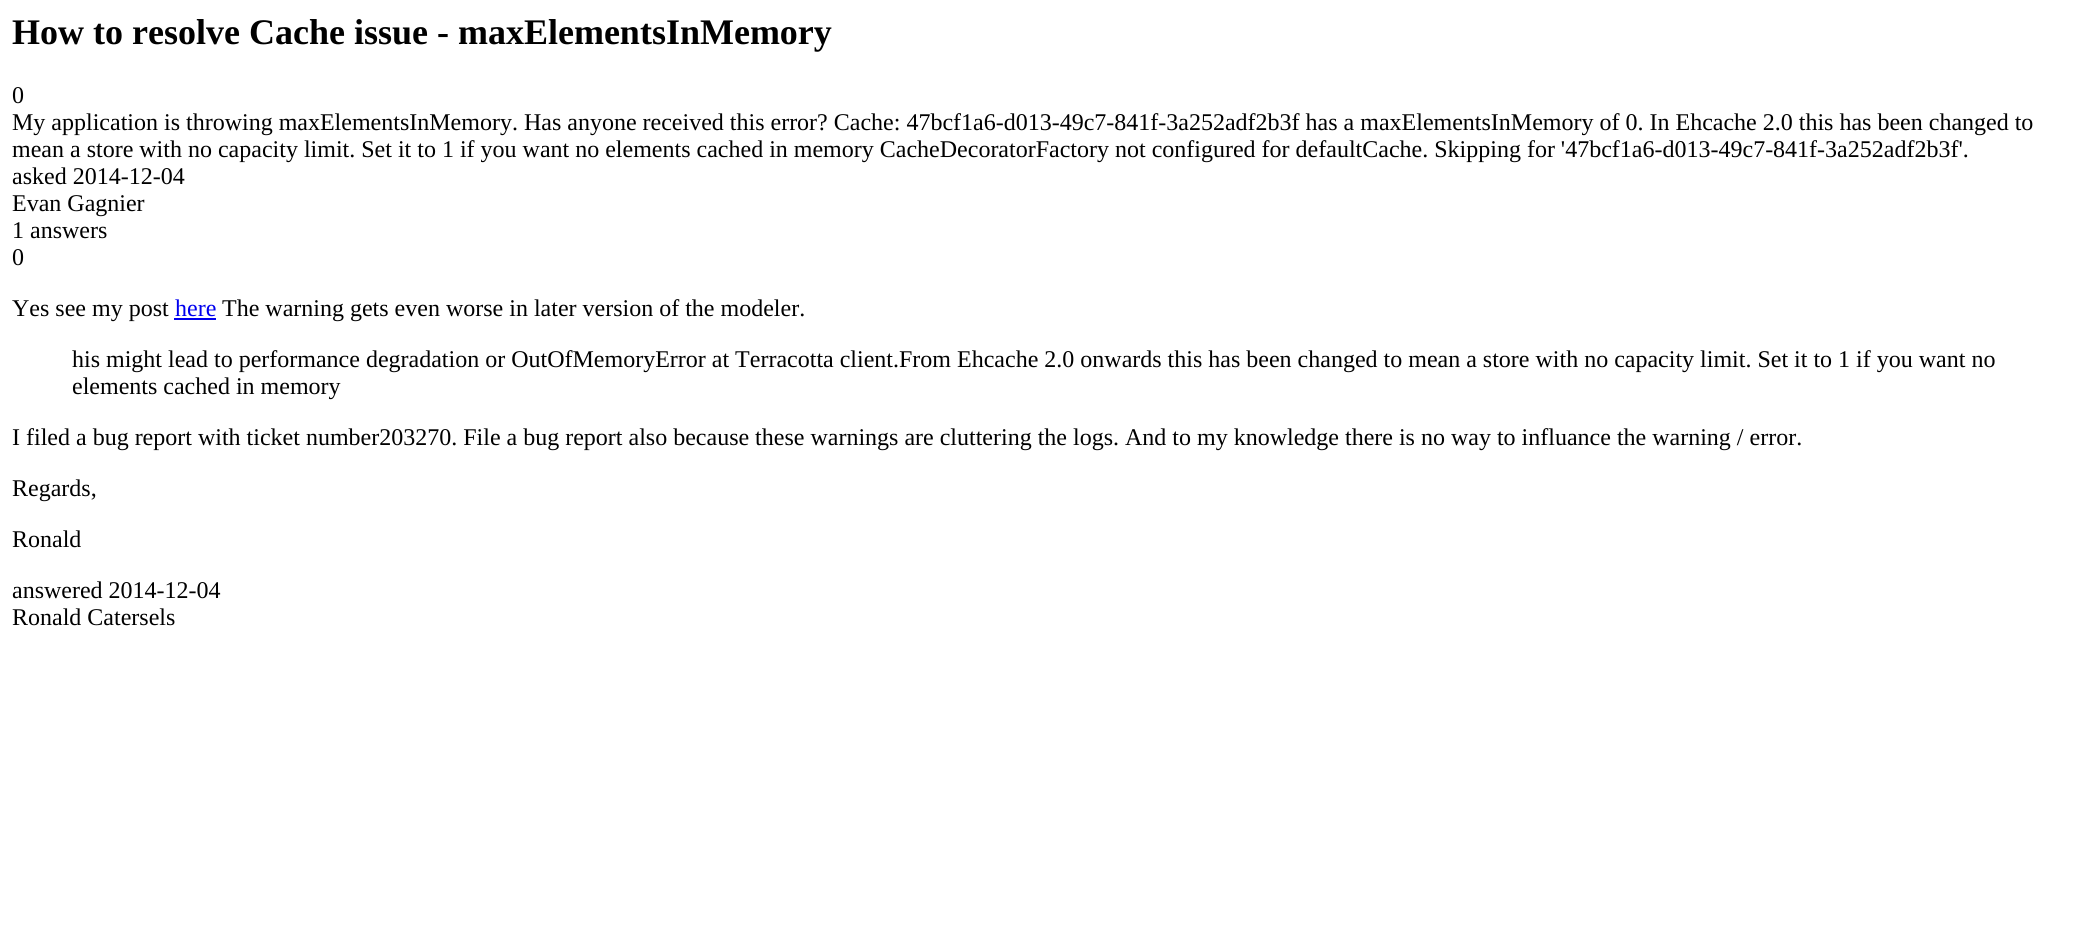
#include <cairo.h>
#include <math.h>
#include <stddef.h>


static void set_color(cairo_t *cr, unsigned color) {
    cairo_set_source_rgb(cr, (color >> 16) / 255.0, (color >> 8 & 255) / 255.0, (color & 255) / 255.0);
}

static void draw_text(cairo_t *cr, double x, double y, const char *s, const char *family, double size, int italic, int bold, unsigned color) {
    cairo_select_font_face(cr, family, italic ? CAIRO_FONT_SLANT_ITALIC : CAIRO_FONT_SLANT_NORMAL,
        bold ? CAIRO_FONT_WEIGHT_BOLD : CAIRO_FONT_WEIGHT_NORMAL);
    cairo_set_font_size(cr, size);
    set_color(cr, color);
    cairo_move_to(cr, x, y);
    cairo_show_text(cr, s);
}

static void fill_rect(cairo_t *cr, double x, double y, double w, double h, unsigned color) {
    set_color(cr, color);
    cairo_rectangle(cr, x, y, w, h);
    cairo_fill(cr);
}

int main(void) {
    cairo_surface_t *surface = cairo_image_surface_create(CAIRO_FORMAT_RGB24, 2094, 944);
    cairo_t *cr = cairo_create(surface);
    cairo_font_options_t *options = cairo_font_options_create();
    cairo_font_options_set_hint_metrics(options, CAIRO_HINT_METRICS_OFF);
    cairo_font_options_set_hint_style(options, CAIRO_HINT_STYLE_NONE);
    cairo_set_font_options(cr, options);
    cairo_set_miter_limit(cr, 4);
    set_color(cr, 0xFFFFFF);
    cairo_paint(cr);
    draw_text(cr, 12, 44, "How to resolve Cache issue - maxElementsInMemory", "Liberation Serif", 36, 0, 1, 0x000000);
    draw_text(cr, 12, 103, "0", "Liberation Serif", 24, 0, 0, 0x000000);
    draw_text(cr, 12, 130, "My application is throwing maxElementsInMemory. Has anyone received this error? Cache: 47bcf1a6-d013-49c7-841f-3a252adf2b3f has a maxElementsInMemory of 0. In Ehcache 2.0 this has been changed to", "Liberation Serif", 24, 0, 0, 0x000000);
    draw_text(cr, 12, 157, "mean a store with no capacity limit. Set it to 1 if you want no elements cached in memory CacheDecoratorFactory not configured for defaultCache. Skipping for '47bcf1a6-d013-49c7-841f-3a252adf2b3f'.", "Liberation Serif", 24, 0, 0, 0x000000);
    draw_text(cr, 12, 184, "asked 2014-12-04", "Liberation Serif", 24, 0, 0, 0x000000);
    draw_text(cr, 12, 211, "Evan Gagnier", "Liberation Serif", 24, 0, 0, 0x000000);
    draw_text(cr, 12, 238, "1 answers", "Liberation Serif", 24, 0, 0, 0x000000);
    draw_text(cr, 12, 265, "0", "Liberation Serif", 24, 0, 0, 0x000000);
    draw_text(cr, 12, 316, "Yes see my post", "Liberation Serif", 24, 0, 0, 0x000000);
    draw_text(cr, 175, 316, "here", "Liberation Serif", 24, 0, 0, 0x0000EE);
    fill_rect(cr, 174, 318, 42, 2, 0x0000EE);
    draw_text(cr, 222, 316, "The warning gets even worse in later version of the modeler.", "Liberation Serif", 24, 0, 0, 0x000000);
    draw_text(cr, 72, 367, "his might lead to performance degradation or OutOfMemoryError at Terracotta client.From Ehcache 2.0 onwards this has been changed to mean a store with no capacity limit. Set it to 1 if you want no", "Liberation Serif", 24, 0, 0, 0x000000);
    draw_text(cr, 72, 394, "elements cached in memory", "Liberation Serif", 24, 0, 0, 0x000000);
    draw_text(cr, 12, 445, "I filed a bug report with ticket number203270. File a bug report also because these warnings are cluttering the logs. And to my knowledge there is no way to influance the warning / error.", "Liberation Serif", 24, 0, 0, 0x000000);
    draw_text(cr, 12, 496, "Regards,", "Liberation Serif", 24, 0, 0, 0x000000);
    draw_text(cr, 12, 547, "Ronald", "Liberation Serif", 24, 0, 0, 0x000000);
    draw_text(cr, 12, 598, "answered 2014-12-04", "Liberation Serif", 24, 0, 0, 0x000000);
    draw_text(cr, 12, 625, "Ronald Catersels", "Liberation Serif", 24, 0, 0, 0x000000);
    cairo_surface_write_to_png(surface, "output.png");
    cairo_font_options_destroy(options);
    cairo_destroy(cr);
    cairo_surface_destroy(surface);
    return 0;
}
